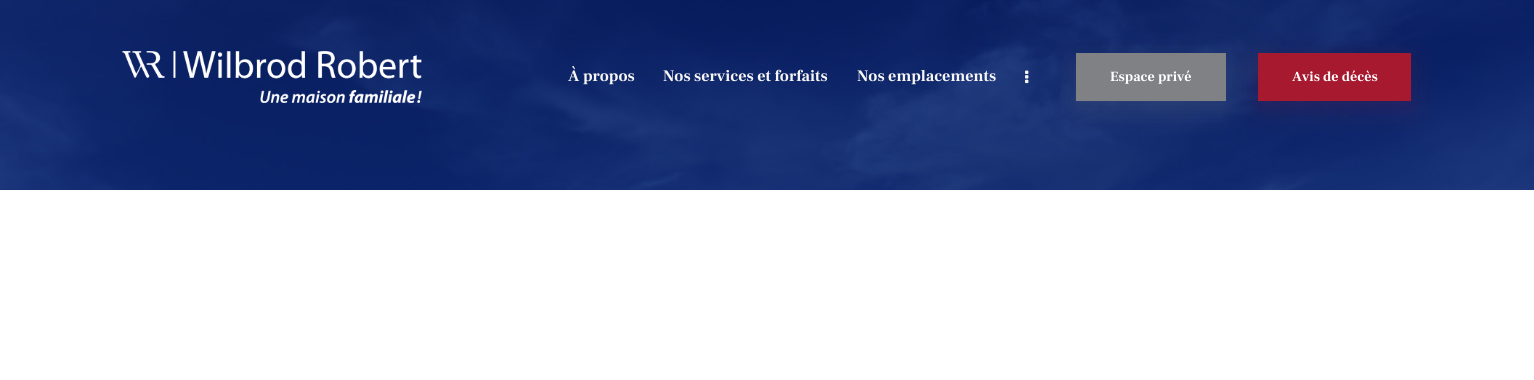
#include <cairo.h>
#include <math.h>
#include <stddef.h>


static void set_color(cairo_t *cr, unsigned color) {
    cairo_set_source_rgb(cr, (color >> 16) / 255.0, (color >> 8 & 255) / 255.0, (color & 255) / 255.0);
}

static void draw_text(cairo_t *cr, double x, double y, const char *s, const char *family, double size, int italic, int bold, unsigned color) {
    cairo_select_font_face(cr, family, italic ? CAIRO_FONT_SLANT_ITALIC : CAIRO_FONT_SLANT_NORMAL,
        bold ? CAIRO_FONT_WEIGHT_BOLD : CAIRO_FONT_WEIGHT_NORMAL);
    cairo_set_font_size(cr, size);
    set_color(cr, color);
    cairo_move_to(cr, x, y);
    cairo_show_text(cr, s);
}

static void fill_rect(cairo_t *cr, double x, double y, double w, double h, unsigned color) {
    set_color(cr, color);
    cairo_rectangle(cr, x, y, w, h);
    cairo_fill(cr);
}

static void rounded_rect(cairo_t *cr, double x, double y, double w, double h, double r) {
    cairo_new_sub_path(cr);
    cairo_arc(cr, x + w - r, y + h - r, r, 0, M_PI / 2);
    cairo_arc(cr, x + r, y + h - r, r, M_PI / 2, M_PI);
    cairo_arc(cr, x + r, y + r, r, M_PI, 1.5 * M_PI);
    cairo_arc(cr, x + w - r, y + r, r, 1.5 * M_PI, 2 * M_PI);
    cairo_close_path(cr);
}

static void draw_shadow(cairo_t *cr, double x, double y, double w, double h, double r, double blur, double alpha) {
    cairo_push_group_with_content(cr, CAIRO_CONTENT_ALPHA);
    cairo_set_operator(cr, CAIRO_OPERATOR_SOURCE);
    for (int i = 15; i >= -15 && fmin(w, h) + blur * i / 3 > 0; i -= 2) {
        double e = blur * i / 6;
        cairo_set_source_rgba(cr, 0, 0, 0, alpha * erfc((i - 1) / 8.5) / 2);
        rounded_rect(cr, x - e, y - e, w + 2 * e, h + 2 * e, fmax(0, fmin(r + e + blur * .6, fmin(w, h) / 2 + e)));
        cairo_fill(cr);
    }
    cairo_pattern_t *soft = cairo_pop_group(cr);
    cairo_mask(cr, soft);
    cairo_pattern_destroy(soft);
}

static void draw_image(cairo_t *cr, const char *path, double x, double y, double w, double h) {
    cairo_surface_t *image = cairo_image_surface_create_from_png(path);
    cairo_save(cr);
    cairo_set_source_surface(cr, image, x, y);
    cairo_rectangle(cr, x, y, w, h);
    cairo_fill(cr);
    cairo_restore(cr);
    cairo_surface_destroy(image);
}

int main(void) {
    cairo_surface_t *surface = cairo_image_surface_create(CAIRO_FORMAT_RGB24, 1534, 380);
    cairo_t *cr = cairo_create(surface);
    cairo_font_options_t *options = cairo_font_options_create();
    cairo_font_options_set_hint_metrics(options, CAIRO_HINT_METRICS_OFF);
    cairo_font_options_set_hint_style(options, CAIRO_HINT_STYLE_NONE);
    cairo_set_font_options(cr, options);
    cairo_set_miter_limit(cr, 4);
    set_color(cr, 0xFFFFFF);
    cairo_paint(cr);
    draw_image(cr, "assets/img1.png", 0, 0, 1534, 190);
    draw_image(cr, "assets/img2.png", 122, 51, 300, 52);
    draw_text(cr, 568, 81, "À propos", "Frank Ruhl Libre", 16, 0, 1, 0xF7F6F4);
    draw_text(cr, 663, 81, "Nos services et forfaits", "Frank Ruhl Libre", 16, 0, 1, 0xF7F6F4);
    draw_text(cr, 857, 81, "Nos emplacements", "Frank Ruhl Libre", 16, 0, 1, 0xF7F6F4);
    draw_image(cr, "assets/img3.png", 1025, 70, 4, 14);
    set_color(cr, 0x808184);
    draw_shadow(cr, 1076, 60, 150, 48, 0, 12.5, 0.2);
    fill_rect(cr, 1076, 53, 150, 48, 0x808184);
    draw_text(cr, 1110, 81, "Espace privé", "Frank Ruhl Libre", 14, 0, 1, 0xFFFFFF);
    set_color(cr, 0xA6192E);
    draw_shadow(cr, 1258, 60, 153, 48, 0, 12.5, 0.2);
    fill_rect(cr, 1258, 53, 153, 48, 0xA6192E);
    draw_text(cr, 1292, 81, "Avis de décès", "Frank Ruhl Libre", 14, 0, 1, 0xFFFFFF);
    cairo_surface_write_to_png(surface, "output.png");
    cairo_font_options_destroy(options);
    cairo_destroy(cr);
    cairo_surface_destroy(surface);
    return 0;
}
